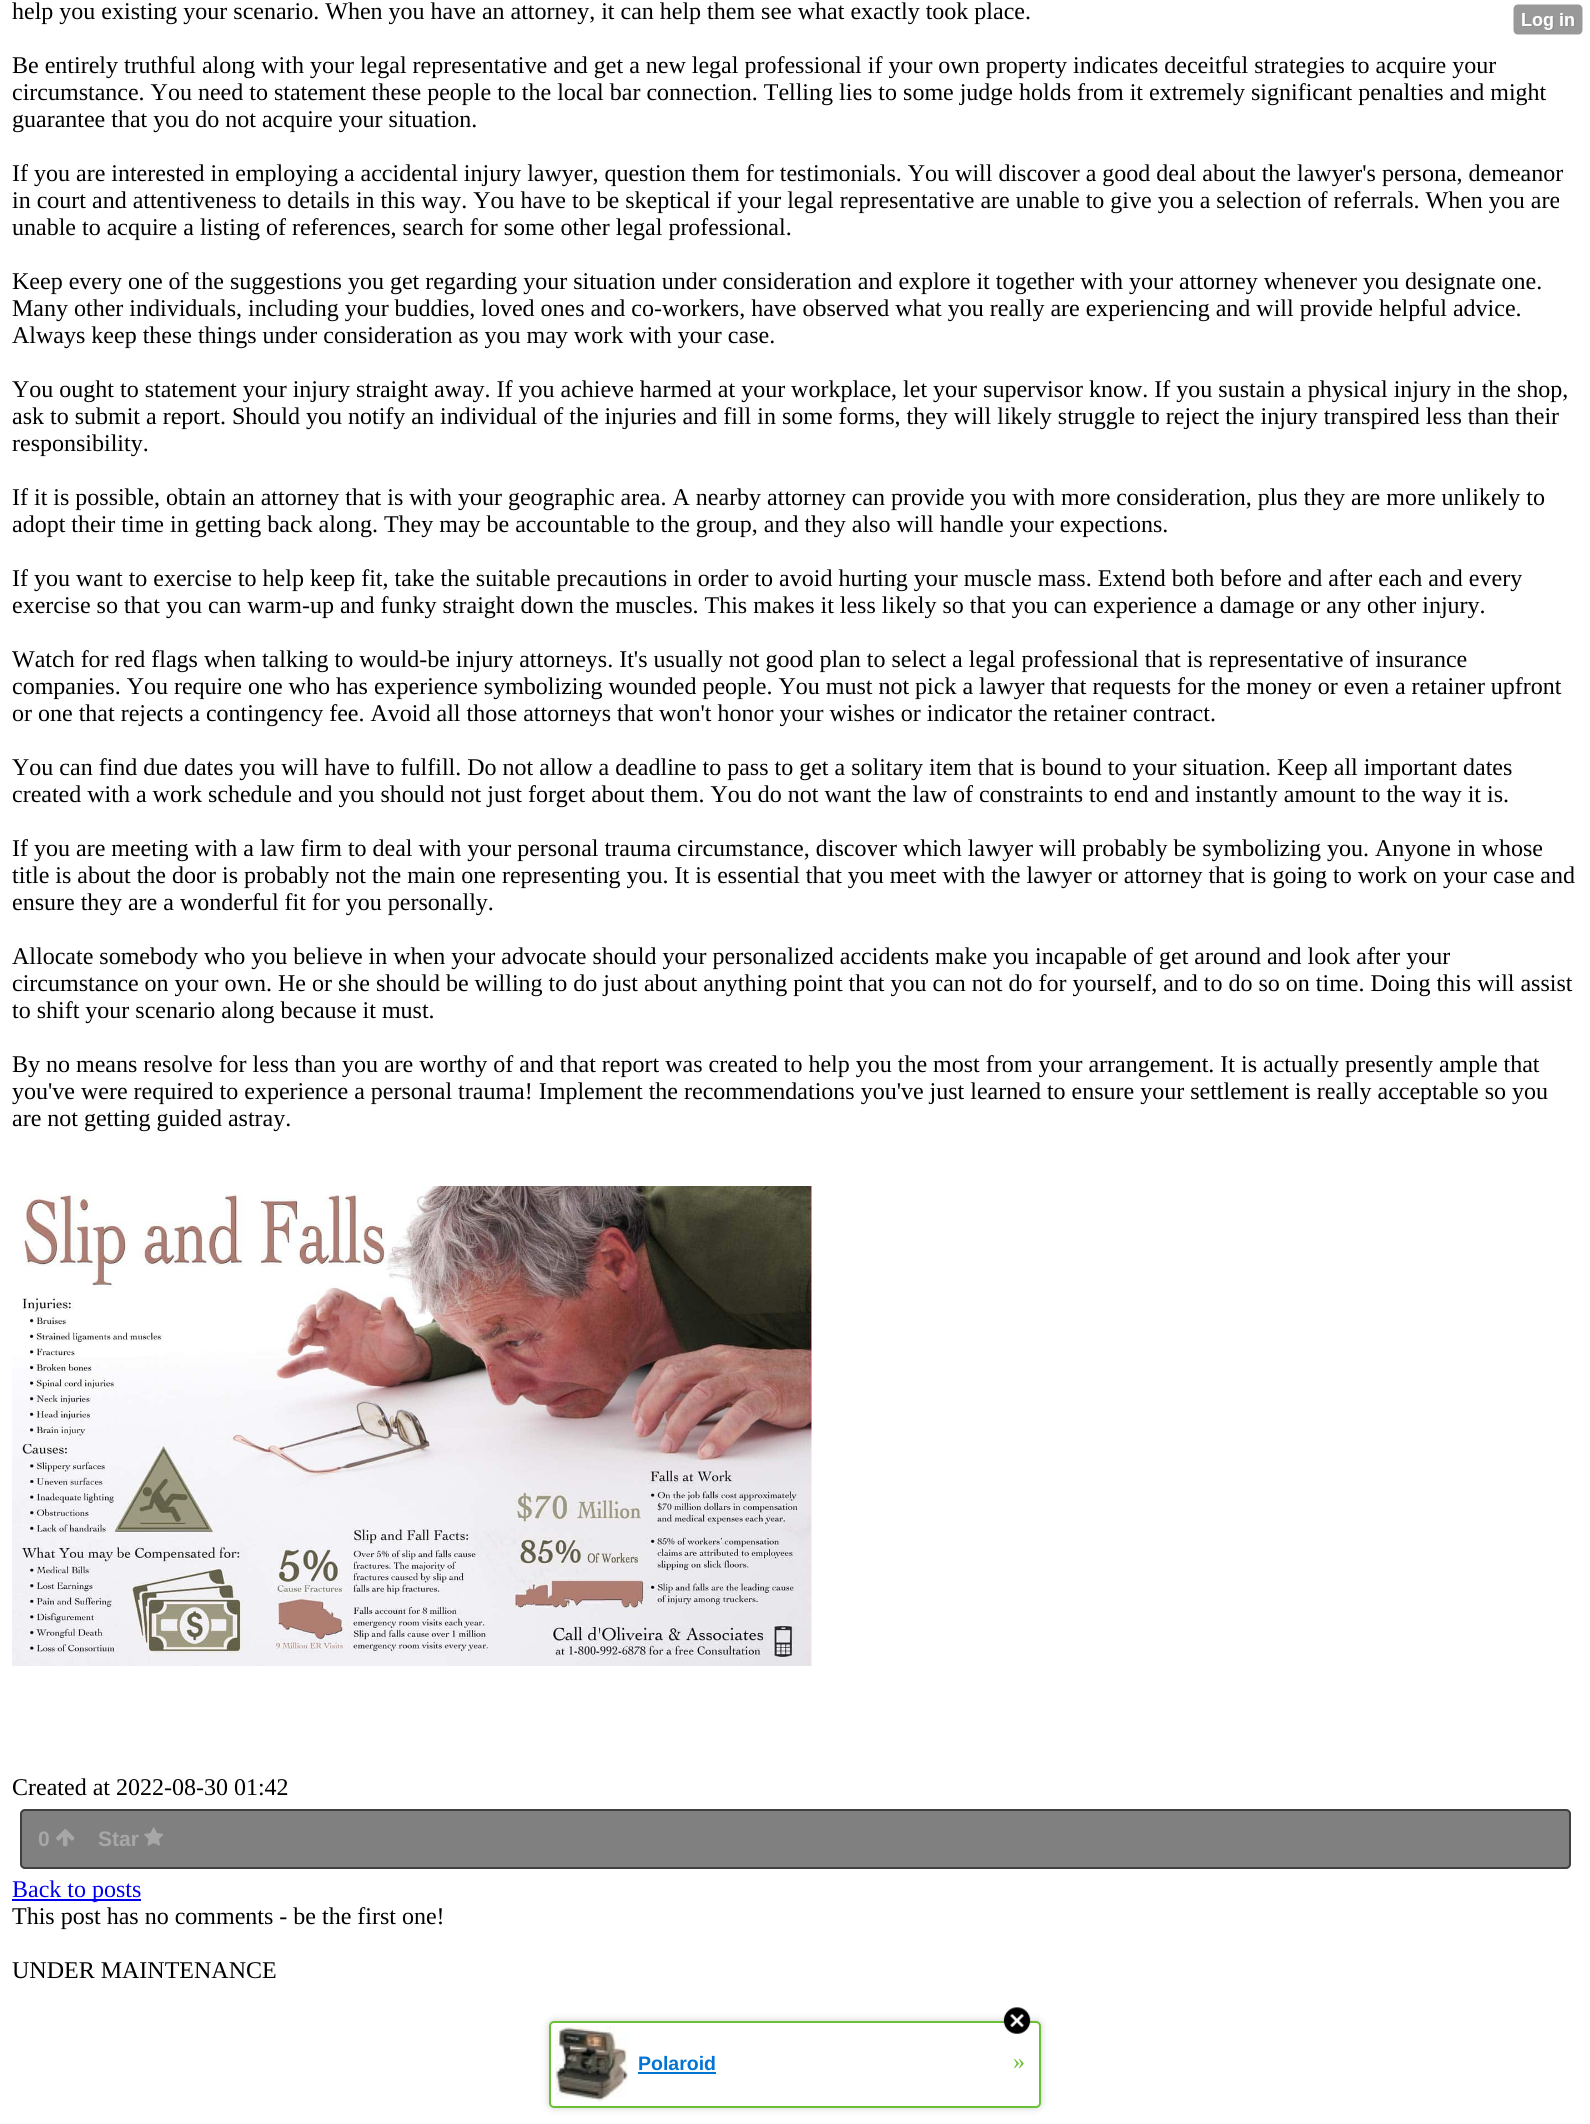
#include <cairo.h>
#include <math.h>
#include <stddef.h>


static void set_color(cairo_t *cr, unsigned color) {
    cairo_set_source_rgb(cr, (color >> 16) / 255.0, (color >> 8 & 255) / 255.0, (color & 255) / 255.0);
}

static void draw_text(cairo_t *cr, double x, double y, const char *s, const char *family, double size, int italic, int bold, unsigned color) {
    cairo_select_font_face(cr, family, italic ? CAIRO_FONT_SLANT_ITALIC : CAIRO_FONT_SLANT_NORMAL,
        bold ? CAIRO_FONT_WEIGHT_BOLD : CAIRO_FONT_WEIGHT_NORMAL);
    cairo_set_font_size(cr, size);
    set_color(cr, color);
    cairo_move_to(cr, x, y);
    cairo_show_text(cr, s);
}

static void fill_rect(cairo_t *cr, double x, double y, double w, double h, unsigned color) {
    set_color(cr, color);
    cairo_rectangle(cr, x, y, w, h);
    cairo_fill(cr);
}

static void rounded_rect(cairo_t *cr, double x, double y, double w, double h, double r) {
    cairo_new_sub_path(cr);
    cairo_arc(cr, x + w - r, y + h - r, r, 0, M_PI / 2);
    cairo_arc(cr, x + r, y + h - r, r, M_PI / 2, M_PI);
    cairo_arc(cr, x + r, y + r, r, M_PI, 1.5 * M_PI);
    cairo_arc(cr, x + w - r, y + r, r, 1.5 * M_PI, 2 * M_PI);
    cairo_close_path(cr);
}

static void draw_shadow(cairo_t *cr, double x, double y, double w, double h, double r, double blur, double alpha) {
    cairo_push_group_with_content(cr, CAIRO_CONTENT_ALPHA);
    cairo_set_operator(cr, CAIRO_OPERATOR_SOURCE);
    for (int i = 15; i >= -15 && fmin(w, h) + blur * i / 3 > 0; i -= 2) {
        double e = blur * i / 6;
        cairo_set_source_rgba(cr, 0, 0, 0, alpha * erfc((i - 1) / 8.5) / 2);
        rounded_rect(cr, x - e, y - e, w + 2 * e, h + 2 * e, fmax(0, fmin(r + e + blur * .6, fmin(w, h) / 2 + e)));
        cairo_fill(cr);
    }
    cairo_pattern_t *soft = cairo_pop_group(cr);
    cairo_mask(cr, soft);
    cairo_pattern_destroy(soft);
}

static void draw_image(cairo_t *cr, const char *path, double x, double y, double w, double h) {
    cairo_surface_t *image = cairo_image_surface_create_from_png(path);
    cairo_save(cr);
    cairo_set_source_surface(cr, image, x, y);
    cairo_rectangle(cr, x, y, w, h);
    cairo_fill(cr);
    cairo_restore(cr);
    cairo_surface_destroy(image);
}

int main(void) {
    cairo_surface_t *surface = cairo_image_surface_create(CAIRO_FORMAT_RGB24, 1590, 2124);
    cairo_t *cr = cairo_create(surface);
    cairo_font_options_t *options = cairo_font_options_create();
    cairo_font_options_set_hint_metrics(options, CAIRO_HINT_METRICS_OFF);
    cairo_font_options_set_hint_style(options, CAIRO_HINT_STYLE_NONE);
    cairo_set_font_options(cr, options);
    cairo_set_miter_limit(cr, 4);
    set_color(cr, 0xFFFFFF);
    cairo_paint(cr);
    draw_text(cr, 12, 19, "help you existing your scenario. When you have an attorney, it can help them see what exactly took place.", "Liberation Serif", 24, 0, 0, 0x000000);
    draw_text(cr, 12, 73, "Be entirely truthful along with your legal representative and get a new legal professional if your own property indicates deceitful strategies to acquire your", "Liberation Serif", 24, 0, 0, 0x000000);
    draw_text(cr, 12, 100, "circumstance. You need to statement these people to the local bar connection. Telling lies to some judge holds from it extremely significant penalties and might", "Liberation Serif", 24, 0, 0, 0x000000);
    draw_text(cr, 12, 127, "guarantee that you do not acquire your situation.", "Liberation Serif", 24, 0, 0, 0x000000);
    draw_text(cr, 12, 181, "If you are interested in employing a accidental injury lawyer, question them for testimonials. You will discover a good deal about the lawyer's persona, demeanor", "Liberation Serif", 24, 0, 0, 0x000000);
    draw_text(cr, 12, 208, "in court and attentiveness to details in this way. You have to be skeptical if your legal representative are unable to give you a selection of referrals. When you are", "Liberation Serif", 24, 0, 0, 0x000000);
    draw_text(cr, 12, 235, "unable to acquire a listing of references, search for some other legal professional.", "Liberation Serif", 24, 0, 0, 0x000000);
    draw_text(cr, 12, 289, "Keep every one of the suggestions you get regarding your situation under consideration and explore it together with your attorney whenever you designate one.", "Liberation Serif", 24, 0, 0, 0x000000);
    draw_text(cr, 12, 316, "Many other individuals, including your buddies, loved ones and co-workers, have observed what you really are experiencing and will provide helpful advice.", "Liberation Serif", 24, 0, 0, 0x000000);
    draw_text(cr, 12, 343, "Always keep these things under consideration as you may work with your case.", "Liberation Serif", 24, 0, 0, 0x000000);
    draw_text(cr, 12, 397, "You ought to statement your injury straight away. If you achieve harmed at your workplace, let your supervisor know. If you sustain a physical injury in the shop,", "Liberation Serif", 24, 0, 0, 0x000000);
    draw_text(cr, 12, 424, "ask to submit a report. Should you notify an individual of the injuries and fill in some forms, they will likely struggle to reject the injury transpired less than their", "Liberation Serif", 24, 0, 0, 0x000000);
    draw_text(cr, 12, 451, "responsibility.", "Liberation Serif", 24, 0, 0, 0x000000);
    draw_text(cr, 12, 505, "If it is possible, obtain an attorney that is with your geographic area. A nearby attorney can provide you with more consideration, plus they are more unlikely to", "Liberation Serif", 24, 0, 0, 0x000000);
    draw_text(cr, 12, 532, "adopt their time in getting back along. They may be accountable to the group, and they also will handle your expections.", "Liberation Serif", 24, 0, 0, 0x000000);
    draw_text(cr, 12, 586, "If you want to exercise to help keep fit, take the suitable precautions in order to avoid hurting your muscle mass. Extend both before and after each and every", "Liberation Serif", 24, 0, 0, 0x000000);
    draw_text(cr, 12, 613, "exercise so that you can warm-up and funky straight down the muscles. This makes it less likely so that you can experience a damage or any other injury.", "Liberation Serif", 24, 0, 0, 0x000000);
    draw_text(cr, 12, 667, "Watch for red flags when talking to would-be injury attorneys. It's usually not good plan to select a legal professional that is representative of insurance", "Liberation Serif", 24, 0, 0, 0x000000);
    draw_text(cr, 12, 694, "companies. You require one who has experience symbolizing wounded people. You must not pick a lawyer that requests for the money or even a retainer upfront", "Liberation Serif", 24, 0, 0, 0x000000);
    draw_text(cr, 12, 721, "or one that rejects a contingency fee. Avoid all those attorneys that won't honor your wishes or indicator the retainer contract.", "Liberation Serif", 24, 0, 0, 0x000000);
    draw_text(cr, 12, 775, "You can find due dates you will have to fulfill. Do not allow a deadline to pass to get a solitary item that is bound to your situation. Keep all important dates", "Liberation Serif", 24, 0, 0, 0x000000);
    draw_text(cr, 12, 802, "created with a work schedule and you should not just forget about them. You do not want the law of constraints to end and instantly amount to the way it is.", "Liberation Serif", 24, 0, 0, 0x000000);
    draw_text(cr, 12, 856, "If you are meeting with a law firm to deal with your personal trauma circumstance, discover which lawyer will probably be symbolizing you. Anyone in whose", "Liberation Serif", 24, 0, 0, 0x000000);
    draw_text(cr, 12, 883, "title is about the door is probably not the main one representing you. It is essential that you meet with the lawyer or attorney that is going to work on your case and", "Liberation Serif", 24, 0, 0, 0x000000);
    draw_text(cr, 12, 910, "ensure they are a wonderful fit for you personally.", "Liberation Serif", 24, 0, 0, 0x000000);
    draw_text(cr, 12, 964, "Allocate somebody who you believe in when your advocate should your personalized accidents make you incapable of get around and look after your", "Liberation Serif", 24, 0, 0, 0x000000);
    draw_text(cr, 12, 991, "circumstance on your own. He or she should be willing to do just about anything point that you can not do for yourself, and to do so on time. Doing this will assist", "Liberation Serif", 24, 0, 0, 0x000000);
    draw_text(cr, 12, 1018, "to shift your scenario along because it must.", "Liberation Serif", 24, 0, 0, 0x000000);
    draw_text(cr, 12, 1072, "By no means resolve for less than you are worthy of and that report was created to help you the most from your arrangement. It is actually presently ample that", "Liberation Serif", 24, 0, 0, 0x000000);
    draw_text(cr, 12, 1099, "you've were required to experience a personal trauma! Implement the recommendations you've just learned to ensure your settlement is really acceptable so you", "Liberation Serif", 24, 0, 0, 0x000000);
    draw_text(cr, 12, 1126, "are not getting guided astray.", "Liberation Serif", 24, 0, 0, 0x000000);
    draw_image(cr, "assets/img1.png", 12, 1186, 800, 480);
    draw_text(cr, 12, 1795, "Created at 2022-08-30 01:42", "Liberation Serif", 24, 0, 0, 0x000000);
    set_color(cr, 0x808080);
    rounded_rect(cr, 20, 1809, 1551, 60, 5);
    cairo_fill(cr);
    rounded_rect(cr, 21, 1810, 1549, 58, 4);
    cairo_set_source_rgba(cr, 0, 0, 0, 0.5);
    cairo_stroke(cr);
    draw_text(cr, 38, 1846, "0", "Liberation Sans", 21, 0, 1, 0xA7A7A7);
    draw_image(cr, "assets/img2.png", 56, 1829, 19, 18);
    draw_text(cr, 98, 1846, "Star", "Liberation Sans", 21, 0, 1, 0xA7A7A7);
    draw_image(cr, "assets/img3.png", 144, 1827, 20, 19);
    fill_rect(cr, 12, 1899, 129, 2, 0x0000EE);
    draw_text(cr, 12, 1897, "Back to posts", "Liberation Serif", 24, 0, 0, 0x0000EE);
    draw_text(cr, 12, 1924, "This post has no comments - be the first one!", "Liberation Serif", 24, 0, 0, 0x000000);
    draw_text(cr, 12, 1978, "UNDER MAINTENANCE", "Liberation Serif", 24, 0, 0, 0x000000);
    draw_image(cr, "assets/img4.png", 1513, 4, 70, 31);
    set_color(cr, 0x000000);
    draw_shadow(cr, 549, 2021, 492, 87, 5, 4, 0.2);
    set_color(cr, 0xFFFFFF);
    rounded_rect(cr, 550, 2022, 490, 85, 4);
    cairo_fill_preserve(cr);
    set_color(cr, 0x6BC135);
    cairo_stroke(cr);
    draw_image(cr, "assets/img5.png", 1003, 2007, 28, 27);
    draw_image(cr, "assets/img6.png", 555, 2026, 73, 76);
    draw_text(cr, 638, 2070, "Polaroid", "Liberation Sans", 19.5, 0, 1, 0x0274D4);
    fill_rect(cr, 638, 2072, 78, 2, 0x0274D4);
    draw_text(cr, 1013, 2069, "»", "Liberation Serif", 24, 0, 0, 0x6BC135);
    cairo_surface_write_to_png(surface, "output.png");
    cairo_font_options_destroy(options);
    cairo_destroy(cr);
    cairo_surface_destroy(surface);
    return 0;
}
